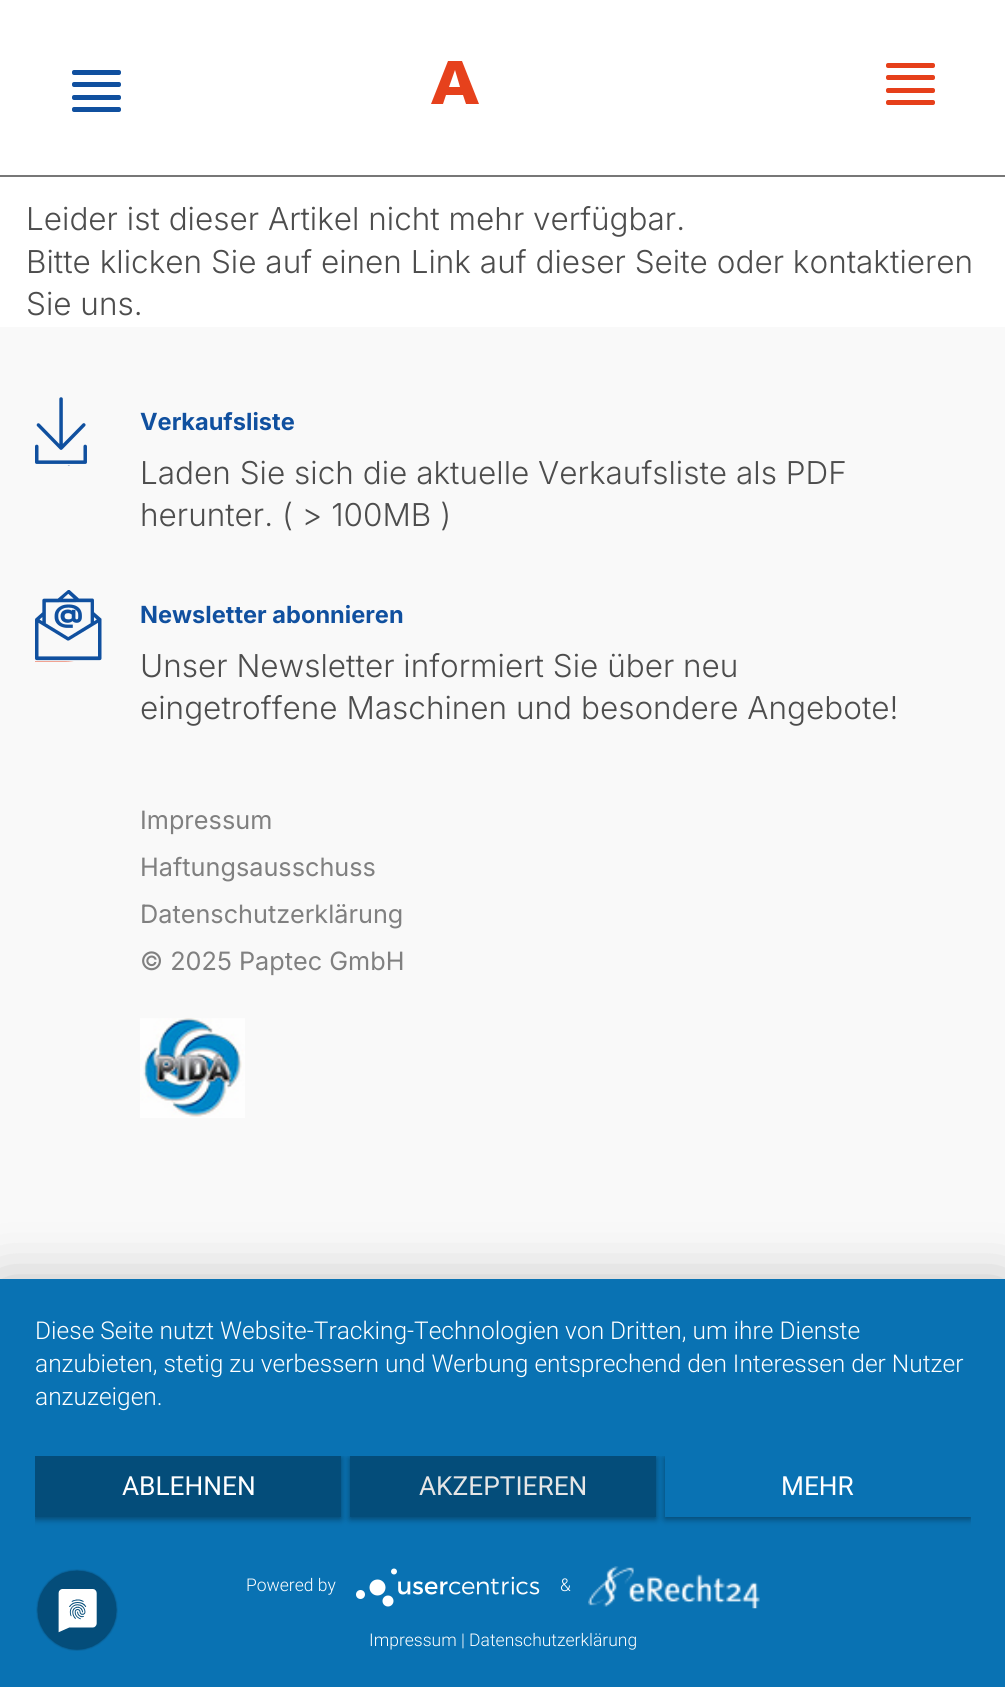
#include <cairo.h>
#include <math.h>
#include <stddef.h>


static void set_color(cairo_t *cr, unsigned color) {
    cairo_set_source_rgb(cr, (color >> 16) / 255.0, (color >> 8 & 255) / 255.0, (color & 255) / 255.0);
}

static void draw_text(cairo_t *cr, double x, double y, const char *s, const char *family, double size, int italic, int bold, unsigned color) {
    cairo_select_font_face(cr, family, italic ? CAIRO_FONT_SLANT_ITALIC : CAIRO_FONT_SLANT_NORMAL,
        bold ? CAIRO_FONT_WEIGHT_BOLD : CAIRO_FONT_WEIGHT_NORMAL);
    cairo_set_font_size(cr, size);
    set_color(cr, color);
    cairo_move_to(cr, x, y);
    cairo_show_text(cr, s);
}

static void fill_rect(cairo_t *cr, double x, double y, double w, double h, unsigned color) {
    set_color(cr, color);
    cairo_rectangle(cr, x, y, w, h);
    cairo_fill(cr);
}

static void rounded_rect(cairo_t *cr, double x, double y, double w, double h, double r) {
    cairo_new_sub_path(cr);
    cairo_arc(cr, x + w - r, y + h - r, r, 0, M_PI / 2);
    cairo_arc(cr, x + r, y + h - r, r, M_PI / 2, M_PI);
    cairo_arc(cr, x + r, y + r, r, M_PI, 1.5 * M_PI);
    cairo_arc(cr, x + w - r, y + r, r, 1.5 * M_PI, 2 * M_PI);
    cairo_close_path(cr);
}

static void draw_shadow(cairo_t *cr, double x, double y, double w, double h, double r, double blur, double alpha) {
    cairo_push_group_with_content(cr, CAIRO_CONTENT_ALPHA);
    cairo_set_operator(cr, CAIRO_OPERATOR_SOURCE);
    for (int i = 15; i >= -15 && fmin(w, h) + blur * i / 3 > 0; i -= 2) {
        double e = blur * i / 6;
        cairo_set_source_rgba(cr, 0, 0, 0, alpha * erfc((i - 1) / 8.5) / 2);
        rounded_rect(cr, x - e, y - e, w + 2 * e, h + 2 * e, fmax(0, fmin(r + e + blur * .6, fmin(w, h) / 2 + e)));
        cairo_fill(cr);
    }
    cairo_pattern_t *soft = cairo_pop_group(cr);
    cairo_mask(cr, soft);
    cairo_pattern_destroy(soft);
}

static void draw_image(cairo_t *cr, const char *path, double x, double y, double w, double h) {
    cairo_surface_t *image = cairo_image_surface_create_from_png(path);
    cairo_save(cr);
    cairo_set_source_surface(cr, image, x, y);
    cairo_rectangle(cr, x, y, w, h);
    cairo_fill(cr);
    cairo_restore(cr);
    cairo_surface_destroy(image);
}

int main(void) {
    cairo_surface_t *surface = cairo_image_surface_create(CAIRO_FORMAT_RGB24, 1005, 1687);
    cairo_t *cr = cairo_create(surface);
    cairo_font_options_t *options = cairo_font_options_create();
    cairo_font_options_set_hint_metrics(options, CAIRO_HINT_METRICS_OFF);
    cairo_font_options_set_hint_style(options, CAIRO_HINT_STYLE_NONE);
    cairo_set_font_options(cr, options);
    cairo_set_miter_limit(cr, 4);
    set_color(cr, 0xFFFFFF);
    cairo_paint(cr);
    set_color(cr, 0x10509F);
    rounded_rect(cr, 72, 70, 49, 5, 2);
    cairo_fill(cr);
    rounded_rect(cr, 72, 82, 49, 5, 2);
    cairo_fill(cr);
    rounded_rect(cr, 72, 95, 49, 5, 2);
    cairo_fill(cr);
    rounded_rect(cr, 72, 107, 49, 5, 2);
    cairo_fill(cr);
    set_color(cr, 0xE6411C);
    cairo_new_path(cr);
    cairo_move_to(cr, 455, 70);
    cairo_line_to(cr, 460, 87);
    cairo_line_to(cr, 449, 87);
    cairo_close_path(cr);
    cairo_move_to(cr, 448, 61);
    cairo_line_to(cr, 431, 104);
    cairo_line_to(cr, 443, 104);
    cairo_line_to(cr, 446, 95);
    cairo_line_to(cr, 463, 95);
    cairo_line_to(cr, 466, 104);
    cairo_line_to(cr, 479, 104);
    cairo_line_to(cr, 462, 61);
    cairo_close_path(cr);
    cairo_fill(cr);
    set_color(cr, 0xE63F1A);
    rounded_rect(cr, 886, 63, 49, 5, 2);
    cairo_fill(cr);
    rounded_rect(cr, 886, 75, 49, 5, 2);
    cairo_fill(cr);
    rounded_rect(cr, 886, 88, 49, 5, 2);
    cairo_fill(cr);
    rounded_rect(cr, 886, 100, 49, 5, 2);
    cairo_fill(cr);
    fill_rect(cr, 0, 175, 1005, 2, 0x777777);
    draw_text(cr, 26, 230, "Leider ist dieser Artikel nicht mehr verfügbar.", "Inter Light", 31.5, 0, 0, 0x4D4D4D);
    draw_text(cr, 26, 273, "Bitte klicken Sie auf einen Link auf dieser Seite oder kontaktieren", "Inter Light", 31.5, 0, 0, 0x4D4D4D);
    draw_text(cr, 26, 315, "Sie uns.", "Inter Light", 31.5, 0, 0, 0x4D4D4D);
    fill_rect(cr, 0, 327, 1005, 952, 0xF9F9F9);
    draw_image(cr, "assets/img1.png", 35, 397, 52, 69);
    draw_text(cr, 140, 430, "Verkaufsliste", "Inter", 23.6, 0, 1, 0x10509F);
    draw_text(cr, 140, 484, "Laden Sie sich die aktuelle Verkaufsliste als PDF", "Inter Light", 31.5, 0, 0, 0x4D4D4D);
    draw_text(cr, 140, 526, "herunter. ( > 100MB )", "Inter Light", 31.5, 0, 0, 0x4D4D4D);
    draw_image(cr, "assets/img2.png", 35, 590, 67, 72);
    draw_text(cr, 140, 623, "Newsletter abonnieren", "Inter", 23.6, 0, 1, 0x10509F);
    draw_text(cr, 140, 677, "Unser Newsletter informiert Sie über neu", "Inter Light", 31.5, 0, 0, 0x4D4D4D);
    draw_text(cr, 140, 719, "eingetroffene Maschinen und besondere Angebote!", "Inter Light", 31.5, 0, 0, 0x4D4D4D);
    draw_text(cr, 140, 829, "Impressum", "Inter", 25.25, 0, 0, 0x808080);
    draw_text(cr, 140, 876, "Haftungsausschuss", "Inter", 25.25, 0, 0, 0x808080);
    draw_text(cr, 140, 923, "Datenschutzerklärung", "Inter", 25.25, 0, 0, 0x808080);
    draw_text(cr, 140, 970, "© 2025 Paptec GmbH", "Inter", 25.25, 0, 0, 0x808080);
    draw_image(cr, "assets/img3.png", 140, 1018, 105, 100);
    set_color(cr, 0x000000);
    draw_shadow(cr, 0, 1290, 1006, 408, 0, 31.5, 0.3);
    fill_rect(cr, 0, 1279, 1005, 408, 0x0972B3);
    draw_text(cr, 35, 1339, "Diese Seite nutzt Website-Tracking-Technologien von Dritten, um ihre Dienste", "Roboto Light", 24.5, 0, 0, 0xFFFFFF);
    draw_text(cr, 35, 1372, "anzubieten, stetig zu verbessern und Werbung entsprechend den Interessen der Nutzer", "Roboto Light", 24.5, 0, 0, 0xFFFFFF);
    draw_text(cr, 35, 1405, "anzuzeigen.", "Roboto Light", 24.5, 0, 0, 0xFFFFFF);
    cairo_save(cr);
    cairo_rectangle(cr, 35, 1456, 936, 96);
    cairo_clip(cr);
    set_color(cr, 0x000000);
    draw_shadow(cr, 35, 1458, 306, 61, 0, 3.5, 0.4);
    cairo_restore(cr);
    fill_rect(cr, 35, 1456, 306, 61, 0x044D7A);
    draw_text(cr, 122, 1495, "ABLEHNEN", "Roboto", 26.25, 0, 0, 0xFFFFFF);
    cairo_save(cr);
    cairo_rectangle(cr, 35, 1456, 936, 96);
    cairo_clip(cr);
    set_color(cr, 0x000000);
    draw_shadow(cr, 350, 1458, 306, 61, 0, 3.5, 0.4);
    cairo_restore(cr);
    fill_rect(cr, 350, 1456, 306, 61, 0x044D7A);
    draw_text(cr, 419, 1495, "AKZEPTIEREN", "Roboto", 26.25, 0, 0, 0xE6E6E6);
    cairo_save(cr);
    cairo_rectangle(cr, 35, 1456, 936, 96);
    cairo_clip(cr);
    cairo_set_fill_rule(cr, CAIRO_FILL_RULE_EVEN_ODD);
    cairo_new_path(cr);
    cairo_move_to(cr, 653, 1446);
    cairo_line_to(cr, 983, 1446);
    cairo_line_to(cr, 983, 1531);
    cairo_line_to(cr, 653, 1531);
    cairo_close_path(cr);
    cairo_move_to(cr, 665, 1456);
    cairo_line_to(cr, 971, 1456);
    cairo_line_to(cr, 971, 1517);
    cairo_line_to(cr, 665, 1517);
    cairo_close_path(cr);
    cairo_clip(cr);
    set_color(cr, 0x000000);
    draw_shadow(cr, 665, 1458, 306, 61, 0, 3.5, 0.4);
    cairo_restore(cr);
    draw_text(cr, 781, 1495, "MEHR", "Roboto", 26.25, 0, 0, 0xFFFFFF);
    draw_text(cr, 246, 1591, "Powered by", "Roboto Light", 17.5, 0, 0, 0xFFFFFF);
    draw_image(cr, "assets/img4.png", 356, 1568, 184, 39);
    draw_text(cr, 560, 1591, "&", "Roboto Light", 17.5, 0, 0, 0xFFFFFF);
    draw_image(cr, "assets/img5.png", 588, 1566, 172, 43);
    draw_text(cr, 369, 1646, "Impressum | Datenschutzerklärung", "Roboto Light", 17.5, 0, 0, 0xFFFFFF);
    draw_image(cr, "assets/img6.png", 36, 1569, 82, 82);
    cairo_surface_write_to_png(surface, "output.png");
    cairo_font_options_destroy(options);
    cairo_destroy(cr);
    cairo_surface_destroy(surface);
    return 0;
}
